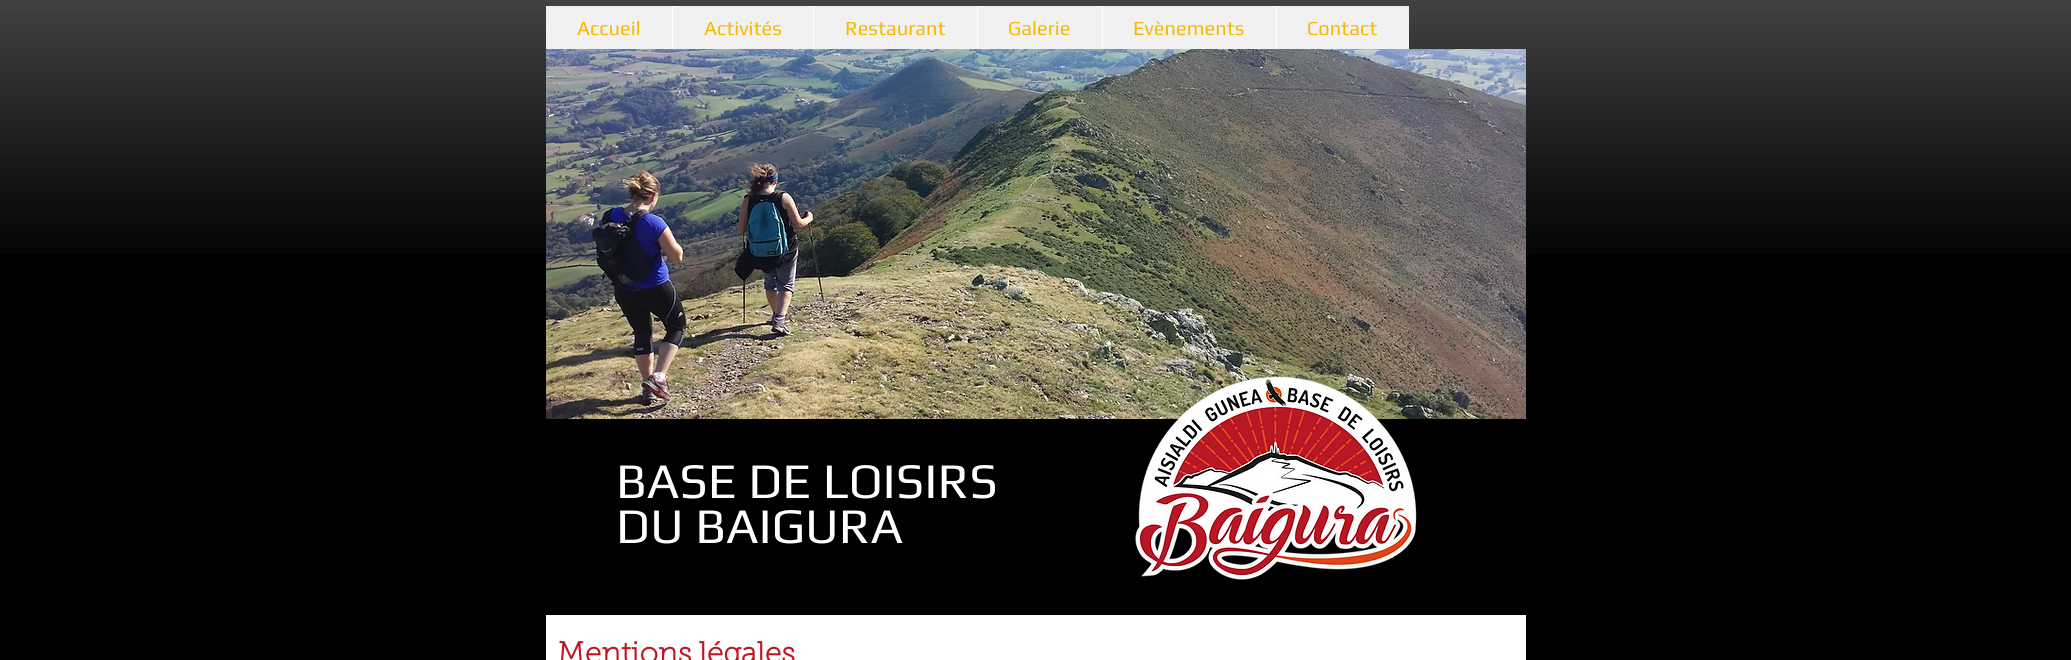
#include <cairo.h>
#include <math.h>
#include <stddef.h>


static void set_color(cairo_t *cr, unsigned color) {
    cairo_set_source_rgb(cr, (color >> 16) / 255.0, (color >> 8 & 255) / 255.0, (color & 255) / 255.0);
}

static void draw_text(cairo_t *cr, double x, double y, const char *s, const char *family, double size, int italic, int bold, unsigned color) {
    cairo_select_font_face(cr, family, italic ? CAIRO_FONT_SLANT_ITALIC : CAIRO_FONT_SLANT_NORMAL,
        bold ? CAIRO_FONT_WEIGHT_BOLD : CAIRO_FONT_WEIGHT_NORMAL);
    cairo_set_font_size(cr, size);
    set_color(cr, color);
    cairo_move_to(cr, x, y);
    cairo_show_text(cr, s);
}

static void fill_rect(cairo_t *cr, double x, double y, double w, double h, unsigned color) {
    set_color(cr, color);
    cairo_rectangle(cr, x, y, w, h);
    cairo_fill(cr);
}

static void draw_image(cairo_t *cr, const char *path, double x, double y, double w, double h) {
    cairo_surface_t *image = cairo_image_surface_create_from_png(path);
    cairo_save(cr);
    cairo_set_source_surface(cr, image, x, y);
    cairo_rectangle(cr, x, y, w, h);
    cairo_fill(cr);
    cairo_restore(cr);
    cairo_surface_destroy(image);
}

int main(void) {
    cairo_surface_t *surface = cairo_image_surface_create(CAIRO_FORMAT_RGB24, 2071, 660);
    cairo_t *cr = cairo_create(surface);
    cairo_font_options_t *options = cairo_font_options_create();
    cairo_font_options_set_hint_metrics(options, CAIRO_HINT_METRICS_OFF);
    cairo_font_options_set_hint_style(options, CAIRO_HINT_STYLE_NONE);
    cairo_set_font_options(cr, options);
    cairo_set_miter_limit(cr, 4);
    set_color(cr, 0x000000);
    cairo_paint(cr);
    draw_image(cr, "assets/img1.png", 0, 0, 2071, 254);
    fill_rect(cr, 546, 6, 863, 43, 0xF1F1F1);
    draw_text(cr, 577, 35, "Accueil", "Play", 20, 0, 0, 0xF7B800);
    fill_rect(cr, 672, 6, 1, 43, 0xFFFFFF);
    draw_text(cr, 704, 35, "Activités", "Play", 20, 0, 0, 0xF7B800);
    fill_rect(cr, 813, 6, 1, 43, 0xFFFFFF);
    draw_text(cr, 845, 35, "Restaurant", "Play", 20, 0, 0, 0xF7B800);
    fill_rect(cr, 977, 6, 1, 43, 0xFFFFFF);
    draw_text(cr, 1008, 35, "Galerie", "Play", 20, 0, 0, 0xF7B800);
    fill_rect(cr, 1102, 6, 1, 43, 0xFFFFFF);
    draw_text(cr, 1133, 35, "Evènements", "Play", 20, 0, 0, 0xF7B800);
    fill_rect(cr, 1276, 6, 1, 43, 0xFFFFFF);
    draw_text(cr, 1307, 35, "Contact", "Play", 20, 0, 0, 0xF7B800);
    draw_image(cr, "assets/img2.png", 546, 49, 980, 370);
    draw_text(cr, 616, 498, "BASE DE LOISIRS", "Play", 50, 0, 0, 0xFFFFFF);
    draw_text(cr, 616, 543, "DU BAIGURA", "Play", 50, 0, 0, 0xFFFFFF);
    draw_image(cr, "assets/img3.png", 1135, 376, 282, 204);
    fill_rect(cr, 546, 615, 980, 45, 0xFFFFFF);
    draw_text(cr, 557, 663, "Mentions légales", "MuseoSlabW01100", 30, 0, 1, 0xBE1622);
    cairo_surface_write_to_png(surface, "output.png");
    cairo_font_options_destroy(options);
    cairo_destroy(cr);
    cairo_surface_destroy(surface);
    return 0;
}
